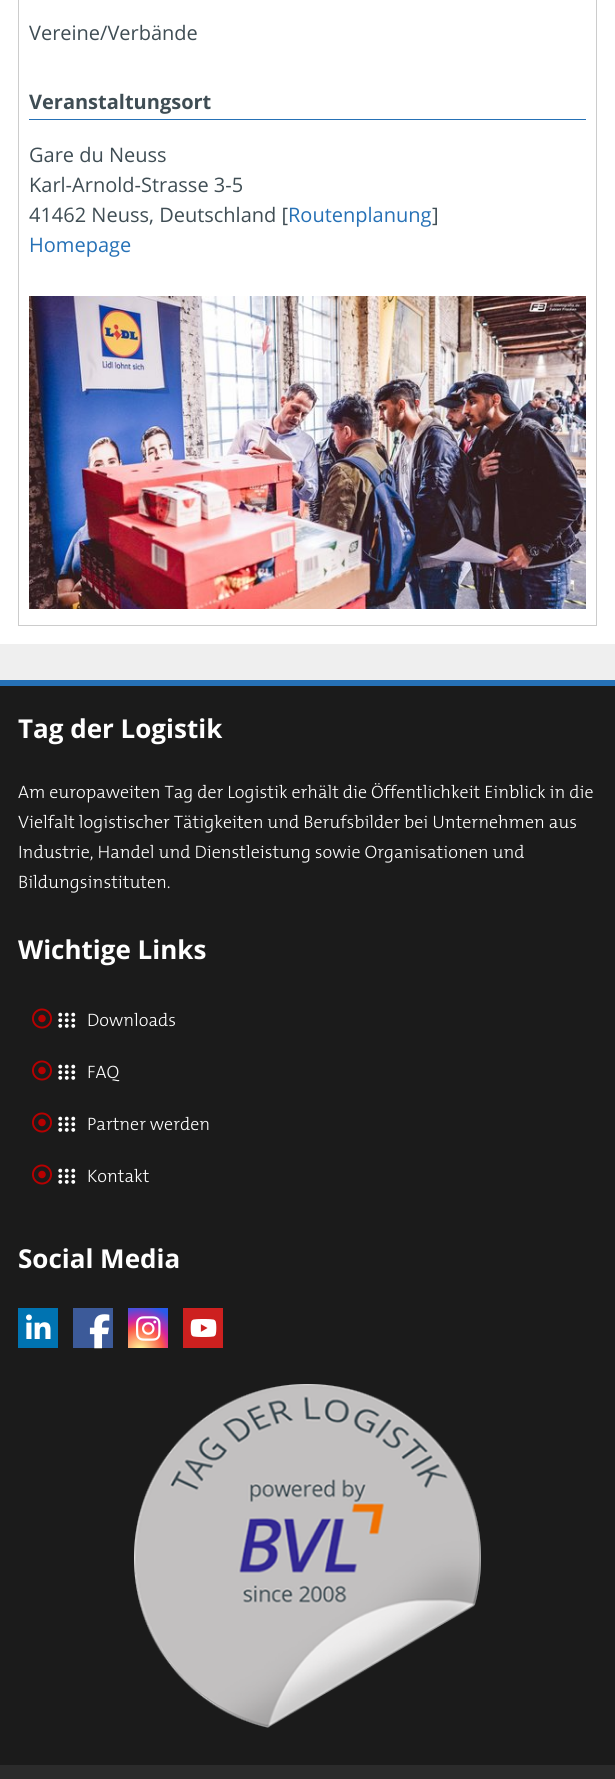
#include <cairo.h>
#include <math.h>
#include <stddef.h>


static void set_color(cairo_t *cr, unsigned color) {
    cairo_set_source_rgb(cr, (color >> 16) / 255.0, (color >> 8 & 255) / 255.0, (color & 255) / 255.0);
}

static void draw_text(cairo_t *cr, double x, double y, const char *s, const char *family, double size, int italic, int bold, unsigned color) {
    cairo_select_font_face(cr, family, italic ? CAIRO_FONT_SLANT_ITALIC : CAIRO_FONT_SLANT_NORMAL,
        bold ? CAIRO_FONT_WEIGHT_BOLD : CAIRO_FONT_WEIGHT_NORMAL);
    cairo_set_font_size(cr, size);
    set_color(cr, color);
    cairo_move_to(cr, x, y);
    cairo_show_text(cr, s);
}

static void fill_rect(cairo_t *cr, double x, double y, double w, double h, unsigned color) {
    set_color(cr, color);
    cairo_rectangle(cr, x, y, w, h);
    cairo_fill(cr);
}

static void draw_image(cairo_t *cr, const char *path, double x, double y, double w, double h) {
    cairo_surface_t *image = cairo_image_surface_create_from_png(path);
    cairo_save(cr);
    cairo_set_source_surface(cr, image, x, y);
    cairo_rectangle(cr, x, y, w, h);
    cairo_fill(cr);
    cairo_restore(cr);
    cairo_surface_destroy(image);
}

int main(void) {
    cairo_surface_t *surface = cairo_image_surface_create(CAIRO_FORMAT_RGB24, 615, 1779);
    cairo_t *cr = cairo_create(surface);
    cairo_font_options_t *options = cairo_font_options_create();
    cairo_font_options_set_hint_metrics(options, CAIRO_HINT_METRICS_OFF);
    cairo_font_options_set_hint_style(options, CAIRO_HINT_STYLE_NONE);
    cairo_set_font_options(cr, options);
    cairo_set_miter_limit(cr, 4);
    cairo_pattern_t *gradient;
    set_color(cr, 0xFFFFFF);
    cairo_paint(cr);
    cairo_rectangle(cr, 18.5, -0.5, 578, 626);
    set_color(cr, 0xCCCCCC);
    cairo_set_line_width(cr, 1);
    cairo_stroke(cr);
    draw_text(cr, 29, 40, "Vereine/Verbände", "Open Sans", 20, 0, 0, 0x3F4D54);
    fill_rect(cr, 29, 119, 557, 1, 0x2671B6);
    draw_text(cr, 29, 109, "Veranstaltungsort", "Open Sans", 20, 0, 1, 0x3F4D54);
    draw_text(cr, 29, 162, "Gare du Neuss", "Open Sans", 20, 0, 0, 0x3F4D54);
    draw_text(cr, 29, 192, "Karl-Arnold-Strasse 3-5", "Open Sans", 20, 0, 0, 0x3F4D54);
    draw_text(cr, 29, 222, "41462 Neuss, Deutschland [", "Open Sans", 20, 0, 0, 0x3F4D54);
    draw_text(cr, 288, 222, "Routenplanung", "Open Sans", 20, 0, 0, 0x2671B6);
    draw_text(cr, 432, 222, "]", "Open Sans", 20, 0, 0, 0x3F4D54);
    draw_text(cr, 29, 252, "Homepage", "Open Sans", 20, 0, 0, 0x2671B6);
    draw_image(cr, "assets/img1.png", 29, 296, 557, 313);
    fill_rect(cr, 0, 644, 615, 36, 0xEFEFEF);
    fill_rect(cr, 0, 680, 615, 6, 0x2671B6);
    fill_rect(cr, 0, 686, 615, 1079, 0x1B1B1B);
    draw_text(cr, 18, 738, "Tag der Logistik", "Open Sans", 26, 0, 1, 0xFFFFFF);
    draw_text(cr, 18, 798, "Am europaweiten Tag der Logistik erhält die Öffentlichkeit Einblick in die", "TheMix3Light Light", 18, 0, 0, 0xFFFFFF);
    draw_text(cr, 18, 828, "Vielfalt logistischer Tätigkeiten und Berufsbilder bei Unternehmen aus", "TheMix3Light Light", 18, 0, 0, 0xFFFFFF);
    draw_text(cr, 18, 858, "Industrie, Handel und Dienstleistung sowie Organisationen und", "TheMix3Light Light", 18, 0, 0, 0xFFFFFF);
    draw_text(cr, 18, 888, "Bildungsinstituten.", "TheMix3Light Light", 18, 0, 0, 0xFFFFFF);
    draw_text(cr, 18, 959, "Wichtige Links", "Open Sans", 26, 0, 1, 0xFFFFFF);
    draw_image(cr, "assets/img2.png", 32, 1008, 20, 21);
    draw_image(cr, "assets/img3.png", 58, 1012, 18, 16);
    draw_text(cr, 87, 1026, "Downloads", "TheMix3Light Light", 18, 0, 0, 0xFFFFFF);
    draw_image(cr, "assets/img2.png", 32, 1060, 20, 21);
    draw_image(cr, "assets/img3.png", 58, 1064, 18, 16);
    draw_text(cr, 87, 1078, "FAQ", "TheMix3Light Light", 18, 0, 0, 0xFFFFFF);
    draw_image(cr, "assets/img2.png", 32, 1112, 20, 21);
    draw_image(cr, "assets/img3.png", 58, 1116, 18, 16);
    draw_text(cr, 87, 1130, "Partner werden", "TheMix3Light Light", 18, 0, 0, 0xFFFFFF);
    draw_image(cr, "assets/img2.png", 32, 1164, 20, 21);
    draw_image(cr, "assets/img3.png", 58, 1168, 18, 16);
    draw_text(cr, 87, 1182, "Kontakt", "TheMix3Light Light", 18, 0, 0, 0xFFFFFF);
    draw_text(cr, 18, 1268, "Social Media", "Open Sans", 26, 0, 1, 0xFFFFFF);
    fill_rect(cr, 18, 1308, 40, 40, 0x0073B1);
    draw_image(cr, "assets/img4.png", 26, 1314, 25, 25);
    fill_rect(cr, 73, 1308, 40, 40, 0x3C5A99);
    draw_image(cr, "assets/img5.png", 89, 1314, 21, 35);
    gradient = cairo_pattern_create_radial(140, 1351, 0, 140, 1351, 51);
    cairo_pattern_add_color_stop_rgba(gradient, 0, 0.992, 0.957, 0.592, 1);
    cairo_pattern_add_color_stop_rgba(gradient, 0.05, 0.992, 0.957, 0.592, 1);
    cairo_pattern_add_color_stop_rgba(gradient, 0.45, 0.992, 0.349, 0.286, 1);
    cairo_pattern_add_color_stop_rgba(gradient, 0.6, 0.839, 0.141, 0.624, 1);
    cairo_pattern_add_color_stop_rgba(gradient, 0.9, 0.157, 0.353, 0.922, 1);
    cairo_set_source(cr, gradient);
    cairo_pattern_destroy(gradient);
    cairo_rectangle(cr, 128, 1308, 40, 40);
    cairo_fill(cr);
    draw_image(cr, "assets/img6.png", 136, 1316, 25, 25);
    fill_rect(cr, 183, 1308, 40, 40, 0xCD201F);
    draw_image(cr, "assets/img7.png", 190, 1319, 27, 18);
    draw_image(cr, "assets/img8.png", 134, 1384, 347, 344);
    fill_rect(cr, 0, 1765, 615, 14, 0x2B2B2B);
    cairo_surface_write_to_png(surface, "output.png");
    cairo_font_options_destroy(options);
    cairo_destroy(cr);
    cairo_surface_destroy(surface);
    return 0;
}
